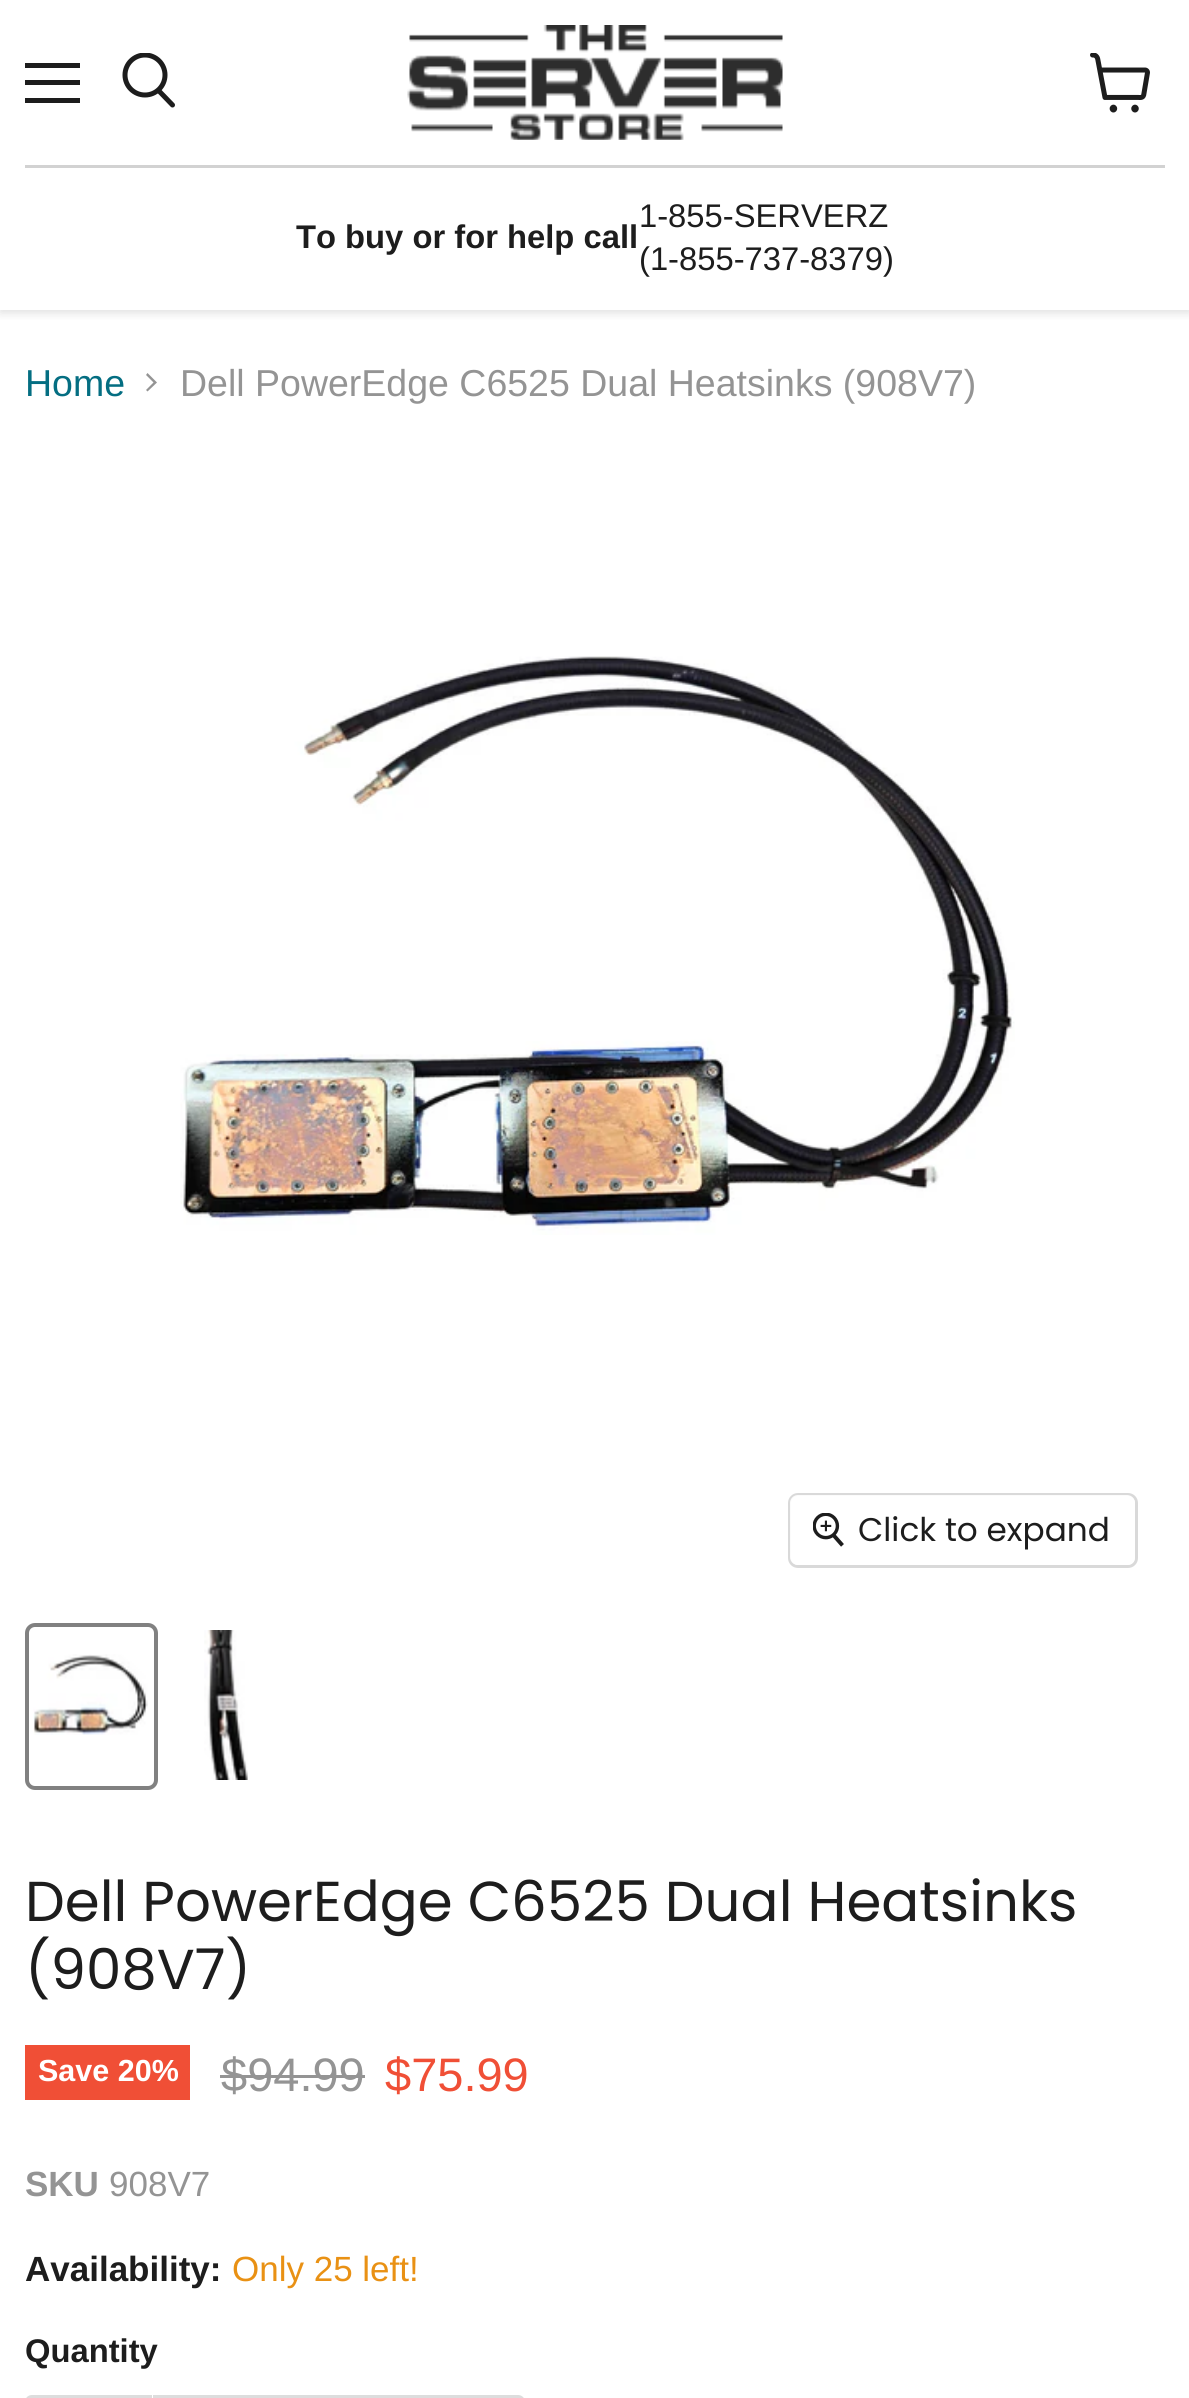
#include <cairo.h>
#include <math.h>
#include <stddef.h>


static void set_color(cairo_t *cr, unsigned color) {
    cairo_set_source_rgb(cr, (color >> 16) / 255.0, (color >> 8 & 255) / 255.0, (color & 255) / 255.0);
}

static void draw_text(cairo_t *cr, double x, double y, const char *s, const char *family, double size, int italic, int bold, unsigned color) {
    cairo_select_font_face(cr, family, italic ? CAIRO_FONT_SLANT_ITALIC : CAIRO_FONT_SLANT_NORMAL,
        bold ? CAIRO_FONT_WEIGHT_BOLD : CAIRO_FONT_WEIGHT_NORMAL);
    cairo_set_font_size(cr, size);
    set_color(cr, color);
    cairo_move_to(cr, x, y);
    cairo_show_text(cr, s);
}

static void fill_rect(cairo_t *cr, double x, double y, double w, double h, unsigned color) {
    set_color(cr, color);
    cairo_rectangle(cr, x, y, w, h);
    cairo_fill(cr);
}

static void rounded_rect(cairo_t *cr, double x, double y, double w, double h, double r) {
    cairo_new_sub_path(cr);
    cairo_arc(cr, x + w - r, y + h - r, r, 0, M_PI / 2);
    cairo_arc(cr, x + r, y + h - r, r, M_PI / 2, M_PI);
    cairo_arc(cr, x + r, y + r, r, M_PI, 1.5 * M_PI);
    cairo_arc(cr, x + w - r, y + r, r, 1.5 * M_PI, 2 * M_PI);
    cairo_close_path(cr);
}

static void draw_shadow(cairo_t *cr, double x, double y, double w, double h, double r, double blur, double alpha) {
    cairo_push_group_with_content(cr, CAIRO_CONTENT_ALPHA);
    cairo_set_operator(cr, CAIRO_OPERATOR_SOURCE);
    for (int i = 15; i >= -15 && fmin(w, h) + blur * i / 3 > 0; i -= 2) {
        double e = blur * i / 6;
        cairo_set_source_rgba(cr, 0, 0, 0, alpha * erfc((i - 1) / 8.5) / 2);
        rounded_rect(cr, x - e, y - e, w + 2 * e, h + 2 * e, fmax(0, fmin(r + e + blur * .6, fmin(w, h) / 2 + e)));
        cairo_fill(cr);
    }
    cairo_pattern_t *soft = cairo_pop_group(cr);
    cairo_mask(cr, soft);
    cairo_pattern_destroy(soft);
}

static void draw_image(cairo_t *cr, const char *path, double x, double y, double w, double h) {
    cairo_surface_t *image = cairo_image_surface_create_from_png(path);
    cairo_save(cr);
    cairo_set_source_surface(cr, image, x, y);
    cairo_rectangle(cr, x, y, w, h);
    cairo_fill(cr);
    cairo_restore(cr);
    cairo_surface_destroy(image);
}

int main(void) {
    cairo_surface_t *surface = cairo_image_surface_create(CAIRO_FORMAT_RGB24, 1189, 2398);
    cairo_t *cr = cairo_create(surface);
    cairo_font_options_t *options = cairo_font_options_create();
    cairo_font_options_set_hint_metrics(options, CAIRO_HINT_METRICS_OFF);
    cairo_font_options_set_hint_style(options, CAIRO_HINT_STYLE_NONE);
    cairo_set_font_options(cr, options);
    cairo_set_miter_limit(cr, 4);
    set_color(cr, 0xFFFFFF);
    cairo_paint(cr);
    cairo_save(cr);
    cairo_rectangle(cr, 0, 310, 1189, 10);
    cairo_clip(cr);
    set_color(cr, 0x808080);
    draw_shadow(cr, 0, 3, 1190, 310, 0, 5, 0.25);
    cairo_restore(cr);
    fill_rect(cr, 25, 63, 55, 5, 0x1D1D1D);
    fill_rect(cr, 25, 80, 55, 5, 0x1D1D1D);
    fill_rect(cr, 25, 98, 55, 5, 0x1D1D1D);
    cairo_new_path(cr);
    cairo_move_to(cr, 172.5, 105);
    cairo_line_to(cr, 159, 91);
    cairo_set_line_width(cr, 5);
    cairo_set_line_cap(cr, CAIRO_LINE_CAP_ROUND);
    cairo_stroke(cr);
    cairo_save(cr);
    cairo_rectangle(cr, 120, 53, 58, 60);
    cairo_clip(cr);
    cairo_arc(cr, 145, 75, 20, 0, 2 * M_PI);
    cairo_set_line_cap(cr, CAIRO_LINE_CAP_BUTT);
    cairo_stroke(cr);
    cairo_restore(cr);
    draw_image(cr, "assets/img1.png", 1090, 53, 60, 60);
    draw_image(cr, "assets/img2.png", 407, 25, 376, 115);
    fill_rect(cr, 25, 165, 1140, 3, 0xD2D2D2);
    draw_text(cr, 296, 248, "To buy or for help call", "Liberation Sans", 32.75, 0, 1, 0x1D1D1D);
    draw_text(cr, 639, 227, "1-855-SERVERZ", "Liberation Sans", 32.75, 0, 0, 0x1D1D1D);
    draw_text(cr, 639, 270, "(1-855-737-8379)", "Liberation Sans", 32.75, 0, 0, 0x1D1D1D);
    draw_text(cr, 25, 396, "Home", "Liberation Sans", 37.5, 0, 0, 0x046E82);
    set_color(cr, 0x949494);
    cairo_set_fill_rule(cr, CAIRO_FILL_RULE_EVEN_ODD);
    cairo_new_path(cr);
    cairo_move_to(cr, 146, 390);
    cairo_line_to(cr, 147.5, 391.5);
    cairo_line_to(cr, 157, 382.5);
    cairo_line_to(cr, 147.5, 373);
    cairo_line_to(cr, 146, 375);
    cairo_line_to(cr, 153.5, 382.5);
    cairo_close_path(cr);
    cairo_fill(cr);
    draw_text(cr, 180, 396, "Dell PowerEdge C6525 Dual Heatsinks (908V7)", "Liberation Sans", 37.5, 0, 0, 0x949494);
    draw_image(cr, "assets/img3.png", 180, 656, 835, 579);
    rounded_rect(cr, 789.5, 1494.5, 347, 72, 8.5);
    set_color(cr, 0xD9D9D9);
    cairo_set_line_width(cr, 3);
    cairo_set_line_cap(cr, CAIRO_LINE_CAP_BUTT);
    cairo_stroke(cr);
    cairo_set_source_rgba(cr, 1, 1, 1, 0.9);
    rounded_rect(cr, 790, 1495, 345, 70, 8);
    cairo_fill(cr);
    draw_image(cr, "assets/img4.png", 813, 1513, 31, 34);
    draw_text(cr, 858, 1541, "Click to expand", "Poppins", 32.75, 0, 0, 0x1D1D1D);
    rounded_rect(cr, 27, 1625, 129, 163, 8);
    set_color(cr, 0x818181);
    cairo_set_line_width(cr, 4);
    cairo_stroke(cr);
    draw_image(cr, "assets/img5.png", 33, 1654, 115, 81);
    draw_image(cr, "assets/img6.png", 204, 1630, 44, 150);
    draw_text(cr, 25, 1921, "Dell PowerEdge C6525 Dual Heatsinks", "Poppins", 56.25, 0, 0, 0x1D1D1D);
    draw_text(cr, 25, 1989, "(908V7)", "Poppins", 56.25, 0, 0, 0x1D1D1D);
    fill_rect(cr, 25, 2045, 165, 55, 0xF04F36);
    draw_text(cr, 38, 2081, "Save 20%", "Liberation Sans", 30.5, 0, 1, 0xFFFFFF);
    draw_text(cr, 221, 2091, "$94.99", "Liberation Sans", 47, 0, 0, 0x949494);
    fill_rect(cr, 220, 2075, 145, 3, 0x949494);
    draw_text(cr, 385, 2091, "$75.99", "Liberation Sans", 47, 0, 0, 0xF04F36);
    draw_text(cr, 25, 2196, "SKU", "Liberation Sans", 35, 0, 1, 0x949494);
    draw_text(cr, 109, 2196, "908V7", "Liberation Sans", 35, 0, 0, 0x949494);
    draw_text(cr, 25, 2281, "Availability:", "Liberation Sans", 35, 0, 1, 0x1D1D1D);
    draw_text(cr, 232, 2281, "Only 25 left!", "Liberation Sans", 35, 0, 0, 0xE99114);
    draw_text(cr, 25, 2362, "Quantity", "Liberation Sans", 32.75, 0, 1, 0x1D1D1D);
    set_color(cr, 0xDDDDDD);
    cairo_new_path(cr);
    cairo_move_to(cr, 32, 2395);
    cairo_line_to(cr, 152, 2395);
    cairo_line_to(cr, 152, 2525);
    cairo_line_to(cr, 32, 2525);
    cairo_curve_to(cr, 28, 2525, 25, 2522, 25, 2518);
    cairo_line_to(cr, 25, 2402);
    cairo_curve_to(cr, 25, 2398, 28, 2395, 32, 2395);
    cairo_close_path(cr);
    cairo_move_to(cr, 32, 2398);
    cairo_line_to(cr, 152, 2398);
    cairo_line_to(cr, 152, 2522);
    cairo_line_to(cr, 32, 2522);
    cairo_curve_to(cr, 30, 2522, 28, 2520, 28, 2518);
    cairo_line_to(cr, 28, 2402);
    cairo_curve_to(cr, 28, 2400, 30, 2398, 32, 2398);
    cairo_close_path(cr);
    cairo_fill(cr);
    cairo_rectangle(cr, 154.5, 2396.5, 242, 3);
    cairo_set_line_width(cr, 3);
    cairo_stroke(cr);
    cairo_new_path(cr);
    cairo_move_to(cr, 398, 2395);
    cairo_line_to(cr, 518, 2395);
    cairo_curve_to(cr, 522, 2395, 525, 2398, 525, 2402);
    cairo_line_to(cr, 525, 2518);
    cairo_curve_to(cr, 525, 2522, 522, 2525, 518, 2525);
    cairo_line_to(cr, 398, 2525);
    cairo_close_path(cr);
    cairo_move_to(cr, 398, 2398);
    cairo_line_to(cr, 518, 2398);
    cairo_curve_to(cr, 520, 2398, 522, 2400, 522, 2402);
    cairo_line_to(cr, 522, 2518);
    cairo_curve_to(cr, 522, 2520, 520, 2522, 518, 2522);
    cairo_line_to(cr, 398, 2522);
    cairo_close_path(cr);
    cairo_fill(cr);
    cairo_surface_write_to_png(surface, "output.png");
    cairo_font_options_destroy(options);
    cairo_destroy(cr);
    cairo_surface_destroy(surface);
    return 0;
}
